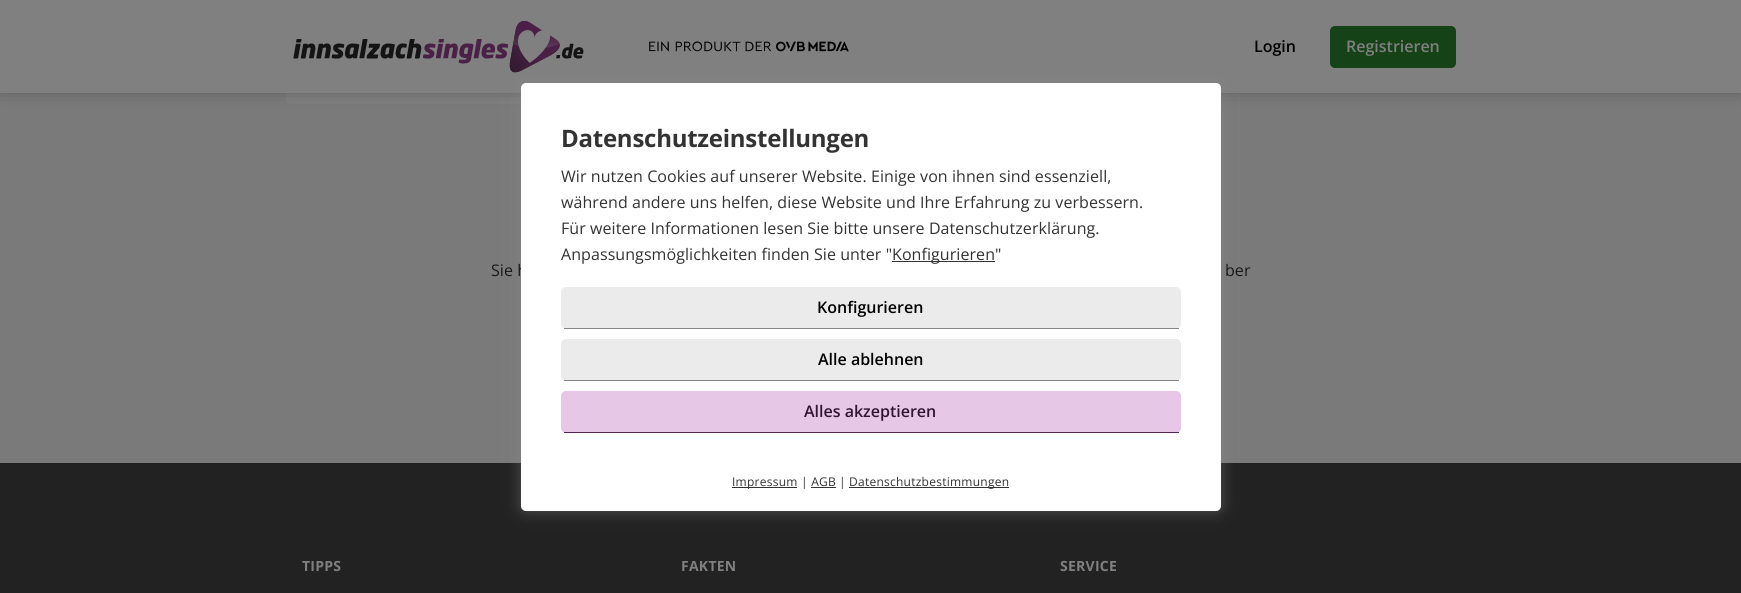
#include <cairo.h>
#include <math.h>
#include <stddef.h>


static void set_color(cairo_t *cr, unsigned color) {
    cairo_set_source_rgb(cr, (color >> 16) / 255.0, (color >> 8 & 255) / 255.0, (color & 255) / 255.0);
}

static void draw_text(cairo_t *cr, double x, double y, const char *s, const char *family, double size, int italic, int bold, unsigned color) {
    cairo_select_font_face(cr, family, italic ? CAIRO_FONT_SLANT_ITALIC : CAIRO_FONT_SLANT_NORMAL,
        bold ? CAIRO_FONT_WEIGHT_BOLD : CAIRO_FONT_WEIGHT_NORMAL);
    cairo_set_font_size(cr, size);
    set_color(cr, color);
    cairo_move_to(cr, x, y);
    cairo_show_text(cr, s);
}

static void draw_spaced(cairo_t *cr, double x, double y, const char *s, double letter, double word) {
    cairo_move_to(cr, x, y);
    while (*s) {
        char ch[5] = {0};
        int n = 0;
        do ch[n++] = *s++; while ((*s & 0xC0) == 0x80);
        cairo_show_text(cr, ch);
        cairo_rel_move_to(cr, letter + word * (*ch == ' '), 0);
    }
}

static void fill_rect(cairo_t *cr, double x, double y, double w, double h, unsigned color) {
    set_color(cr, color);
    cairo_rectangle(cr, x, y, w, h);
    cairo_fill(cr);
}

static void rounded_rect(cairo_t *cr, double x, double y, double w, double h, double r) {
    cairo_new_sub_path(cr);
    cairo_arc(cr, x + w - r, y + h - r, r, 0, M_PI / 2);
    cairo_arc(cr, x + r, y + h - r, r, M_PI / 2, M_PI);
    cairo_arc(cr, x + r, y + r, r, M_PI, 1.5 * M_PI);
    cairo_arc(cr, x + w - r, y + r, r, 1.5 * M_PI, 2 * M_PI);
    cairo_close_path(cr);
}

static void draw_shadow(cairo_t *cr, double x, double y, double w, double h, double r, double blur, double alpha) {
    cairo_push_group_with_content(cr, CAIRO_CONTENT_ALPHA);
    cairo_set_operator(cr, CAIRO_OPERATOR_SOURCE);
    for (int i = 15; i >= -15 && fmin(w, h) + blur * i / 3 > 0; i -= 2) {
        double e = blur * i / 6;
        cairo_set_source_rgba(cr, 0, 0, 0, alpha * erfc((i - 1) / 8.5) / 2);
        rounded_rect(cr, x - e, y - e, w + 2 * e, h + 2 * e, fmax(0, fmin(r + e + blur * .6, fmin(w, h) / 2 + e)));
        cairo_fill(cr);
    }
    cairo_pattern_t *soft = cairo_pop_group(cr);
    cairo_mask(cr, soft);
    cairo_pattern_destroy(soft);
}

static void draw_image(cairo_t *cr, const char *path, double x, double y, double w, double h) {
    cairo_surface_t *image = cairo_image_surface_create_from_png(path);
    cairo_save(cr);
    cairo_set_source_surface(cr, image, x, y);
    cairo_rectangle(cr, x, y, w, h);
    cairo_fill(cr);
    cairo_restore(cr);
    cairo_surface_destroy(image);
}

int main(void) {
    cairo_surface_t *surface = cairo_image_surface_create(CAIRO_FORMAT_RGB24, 1741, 593);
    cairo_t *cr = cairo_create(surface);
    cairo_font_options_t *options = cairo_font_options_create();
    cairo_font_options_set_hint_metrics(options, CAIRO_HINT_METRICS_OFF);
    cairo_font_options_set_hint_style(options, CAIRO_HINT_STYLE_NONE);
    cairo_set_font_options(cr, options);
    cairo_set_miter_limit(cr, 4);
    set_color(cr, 0x7A7A7A);
    cairo_paint(cr);
    set_color(cr, 0x808080);
    rounded_rect(cr, 286, -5, 682, 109, 5);
    cairo_fill(cr);
    set_color(cr, 0x444444);
    draw_shadow(cr, 0, 0, 1741, 93, 0, 7.5, 0.5);
    fill_rect(cr, 0, 0, 1741, 93, 0x808080);
    draw_image(cr, "assets/img1.png", 293, 21, 291, 52);
    draw_image(cr, "assets/img2.png", 649, 41, 200, 11);
    draw_text(cr, 1254, 52, "Login", "Open Sans SemiBold", 16, 0, 0, 0x000000);
    set_color(cr, 0x154216);
    rounded_rect(cr, 1330, 26, 126, 42, 5);
    cairo_fill(cr);
    draw_text(cr, 1346, 52, "Registrieren", "Open Sans SemiBold", 16, 0, 0, 0x808080);
    fill_rect(cr, 0, 463, 1741, 130, 0x222222);
    set_color(cr, 0x888888);
    draw_shadow(cr, 521, 83, 700, 428, 5, 7.5, 0.5);
    cairo_select_font_face(cr, "Open Sans", CAIRO_FONT_SLANT_NORMAL, CAIRO_FONT_WEIGHT_NORMAL);
    set_color(cr, 0x1A1A1A);
    draw_spaced(cr, 491, 276, "Sie h", 0.08, 0);
    set_color(cr, 0xFFFFFF);
    rounded_rect(cr, 521, 83, 700, 428, 5);
    cairo_fill(cr);
    cairo_select_font_face(cr, "Open Sans", CAIRO_FONT_SLANT_NORMAL, CAIRO_FONT_WEIGHT_BOLD);
    cairo_set_font_size(cr, 24);
    set_color(cr, 0x333333);
    draw_spaced(cr, 561, 147, "Datenschutzeinstellungen", -0.25, 0);
    cairo_select_font_face(cr, "Open Sans", CAIRO_FONT_SLANT_NORMAL, CAIRO_FONT_WEIGHT_NORMAL);
    cairo_set_font_size(cr, 16);
    draw_spaced(cr, 561, 182, "Wir nutzen Cookies auf unserer Website. Einige von ihnen sind essenziell,", 0.08, 0);
    draw_spaced(cr, 561, 208, "während andere uns helfen, diese Website und Ihre Erfahrung zu verbessern.", 0.08, 0);
    draw_spaced(cr, 561, 234, "Für weitere Informationen lesen Sie bitte unsere Datenschutzerklärung.", 0.08, 0);
    draw_spaced(cr, 561, 260, "Anpassungsmöglichkeiten finden Sie unter \"", 0.08, 0);
    fill_rect(cr, 892, 261, 103, 1, 0x333333);
    draw_spaced(cr, 892, 260, "Konfigurieren", 0.08, 0);
    draw_spaced(cr, 995, 260, "\"", 0.08, 0);
    set_color(cr, 0xEBEBEB);
    rounded_rect(cr, 561, 287, 620, 42, 5);
    cairo_fill(cr);
    fill_rect(cr, 564, 328, 615, 1, 0x858585);
    draw_text(cr, 817, 313, "Konfigurieren", "Open Sans SemiBold", 16, 0, 0, 0x000000);
    set_color(cr, 0xEBEBEB);
    rounded_rect(cr, 561, 339, 620, 42, 5);
    cairo_fill(cr);
    fill_rect(cr, 564, 380, 615, 1, 0x858585);
    draw_text(cr, 818, 365, "Alle ablehnen", "Open Sans SemiBold", 16, 0, 0, 0x000000);
    set_color(cr, 0xE6C7E6);
    rounded_rect(cr, 561, 391, 620, 42, 5);
    cairo_fill(cr);
    fill_rect(cr, 564, 432, 615, 1, 0x542654);
    draw_text(cr, 804, 417, "Alles akzeptieren", "Open Sans SemiBold", 16, 0, 0, 0x311631);
    fill_rect(cr, 732, 487, 65, 1, 0x333333);
    cairo_select_font_face(cr, "Open Sans", CAIRO_FONT_SLANT_NORMAL, CAIRO_FONT_WEIGHT_NORMAL);
    cairo_set_font_size(cr, 12);
    draw_spaced(cr, 732, 486, "Impressum", 0.25, 0);
    draw_spaced(cr, 801, 486, "| AGB", 0.25, 0);
    draw_spaced(cr, 839, 486, "|", 0.25, 0);
    fill_rect(cr, 849, 487, 160, 1, 0x333333);
    draw_spaced(cr, 849, 486, "Datenschutzbestimmungen", 0.25, 0);
    fill_rect(cr, 811, 487, 25, 1, 0x333333);
    cairo_set_font_size(cr, 16);
    set_color(cr, 0x1A1A1A);
    draw_spaced(cr, 1225, 276, "ber", 0.08, 0);
    cairo_select_font_face(cr, "Open Sans", CAIRO_FONT_SLANT_NORMAL, CAIRO_FONT_WEIGHT_BOLD);
    cairo_set_font_size(cr, 14);
    set_color(cr, 0x808080);
    draw_spaced(cr, 302, 571, "TIPPS", 0.25, 0);
    draw_spaced(cr, 681, 571, "FAKTEN", 0.25, 0);
    draw_spaced(cr, 1060, 571, "SERVICE", 0.25, 0);
    cairo_surface_write_to_png(surface, "output.png");
    cairo_font_options_destroy(options);
    cairo_destroy(cr);
    cairo_surface_destroy(surface);
    return 0;
}
